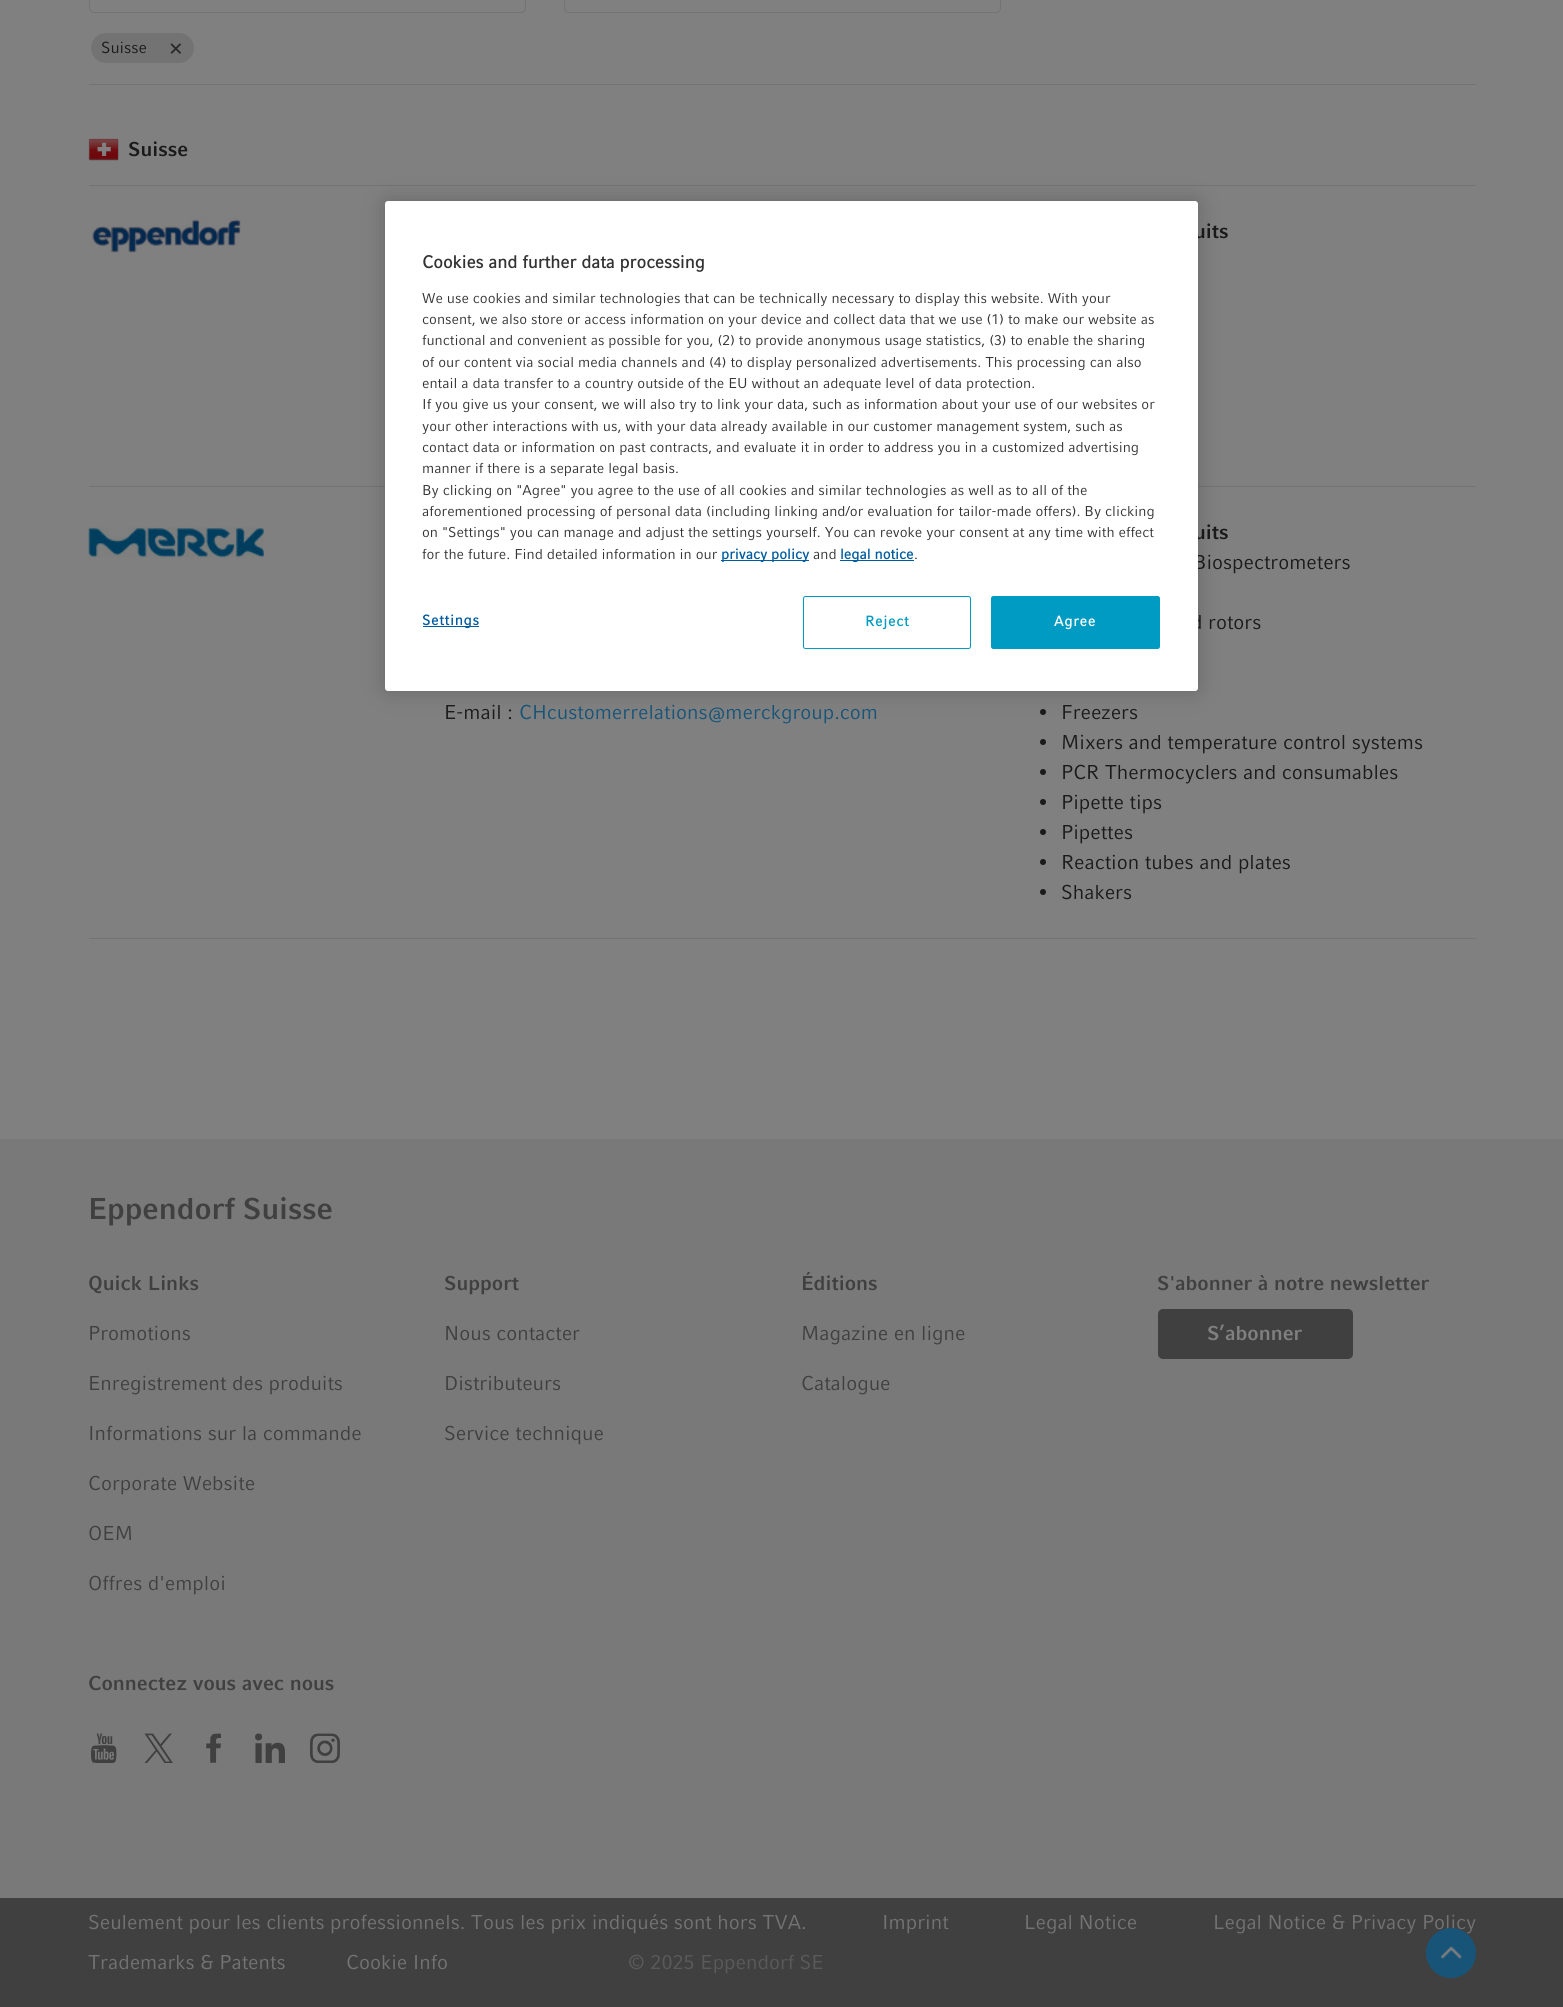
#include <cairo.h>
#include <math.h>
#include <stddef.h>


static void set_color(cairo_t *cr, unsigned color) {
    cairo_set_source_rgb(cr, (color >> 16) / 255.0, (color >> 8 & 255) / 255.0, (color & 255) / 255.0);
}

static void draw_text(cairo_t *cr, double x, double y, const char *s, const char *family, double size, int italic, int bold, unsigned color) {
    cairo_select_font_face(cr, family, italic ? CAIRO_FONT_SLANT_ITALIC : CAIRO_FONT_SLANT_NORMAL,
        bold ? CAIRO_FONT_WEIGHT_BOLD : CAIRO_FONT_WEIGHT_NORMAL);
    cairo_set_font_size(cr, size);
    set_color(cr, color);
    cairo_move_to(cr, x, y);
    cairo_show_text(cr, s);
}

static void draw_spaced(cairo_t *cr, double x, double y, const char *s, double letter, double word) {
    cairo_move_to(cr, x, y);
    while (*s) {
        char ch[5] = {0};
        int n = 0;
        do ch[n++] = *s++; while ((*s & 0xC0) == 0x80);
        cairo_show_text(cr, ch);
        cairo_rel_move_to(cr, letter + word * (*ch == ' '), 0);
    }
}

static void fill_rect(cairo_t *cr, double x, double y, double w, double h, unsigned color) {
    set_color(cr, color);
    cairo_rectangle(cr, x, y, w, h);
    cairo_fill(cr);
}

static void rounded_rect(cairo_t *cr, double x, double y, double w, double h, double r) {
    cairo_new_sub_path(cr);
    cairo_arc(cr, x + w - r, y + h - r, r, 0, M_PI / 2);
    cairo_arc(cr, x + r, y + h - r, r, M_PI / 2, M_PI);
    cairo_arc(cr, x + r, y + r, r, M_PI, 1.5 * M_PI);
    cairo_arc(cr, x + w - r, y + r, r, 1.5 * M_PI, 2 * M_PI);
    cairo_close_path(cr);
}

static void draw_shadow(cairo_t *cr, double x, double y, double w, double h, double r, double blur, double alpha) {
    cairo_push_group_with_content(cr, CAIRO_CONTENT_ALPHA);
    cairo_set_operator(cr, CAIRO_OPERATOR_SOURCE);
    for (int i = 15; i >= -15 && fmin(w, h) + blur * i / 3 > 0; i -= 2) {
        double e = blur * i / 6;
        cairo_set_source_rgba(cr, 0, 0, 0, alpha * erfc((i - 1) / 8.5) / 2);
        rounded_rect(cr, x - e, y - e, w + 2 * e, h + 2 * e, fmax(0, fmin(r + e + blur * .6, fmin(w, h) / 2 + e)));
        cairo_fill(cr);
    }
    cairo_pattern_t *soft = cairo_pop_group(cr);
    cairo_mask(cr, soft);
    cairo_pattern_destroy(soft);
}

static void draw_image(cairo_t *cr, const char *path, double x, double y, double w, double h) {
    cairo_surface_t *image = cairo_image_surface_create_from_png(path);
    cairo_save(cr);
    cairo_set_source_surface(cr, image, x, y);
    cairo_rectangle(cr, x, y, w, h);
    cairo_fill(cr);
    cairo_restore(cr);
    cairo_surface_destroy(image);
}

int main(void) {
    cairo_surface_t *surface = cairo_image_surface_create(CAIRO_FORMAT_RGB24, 1563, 2007);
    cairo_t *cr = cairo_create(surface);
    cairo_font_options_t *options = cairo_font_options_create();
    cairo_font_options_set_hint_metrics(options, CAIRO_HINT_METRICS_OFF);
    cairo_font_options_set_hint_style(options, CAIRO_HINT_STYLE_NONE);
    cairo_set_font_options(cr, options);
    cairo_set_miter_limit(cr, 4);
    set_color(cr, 0x808080);
    cairo_paint(cr);
    fill_rect(cr, 89, 84, 1387, 1, 0x737373);
    rounded_rect(cr, 564.5, -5.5, 436, 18, 4.5);
    cairo_set_line_width(cr, 1);
    cairo_stroke(cr);
    rounded_rect(cr, 89.5, -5.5, 436, 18, 4.5);
    cairo_stroke(cr);
    rounded_rect(cr, 91, 33, 103, 30, 15);
    cairo_fill(cr);
    draw_text(cr, 101, 53, "Suisse", "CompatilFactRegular", 16, 0, 0, 0x1A1A1A);
    draw_text(cr, 170, 54, "×", "CompatilFactRegular", 20, 0, 1, 0x2B2B2B);
    fill_rect(cr, 89, 185, 1387, 1, 0x737373);
    draw_image(cr, "assets/img1.png", 88, 138, 31, 23);
    draw_text(cr, 128, 156, "Suisse", "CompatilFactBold", 20, 0, 1, 0x1A1A1A);
    fill_rect(cr, 89, 486, 1387, 1, 0x737373);
    draw_image(cr, "assets/img2.png", 92, 217, 149, 36);
    draw_text(cr, 1194, 238, "uits", "CompatilFactBold", 20, 0, 1, 0x1A1A1A);
    fill_rect(cr, 89, 938, 1387, 1, 0x737373);
    draw_image(cr, "assets/img3.png", 88, 527, 176, 31);
    draw_text(cr, 1194, 539, "uits", "CompatilFactBold", 20, 0, 1, 0x1A1A1A);
    draw_text(cr, 1193, 569, "Biospectrometers", "CompatilFactRegular", 20, 0, 0, 0x1A1A1A);
    draw_text(cr, 1191, 629, "d rotors", "CompatilFactRegular", 20, 0, 0, 0x1A1A1A);
    cairo_new_path(cr);
    cairo_arc(cr, 1043, 712, 3, 0, 2 * M_PI);
    cairo_fill(cr);
    draw_text(cr, 1061, 719, "Freezers", "CompatilFactRegular", 20, 0, 0, 0x1A1A1A);
    cairo_new_path(cr);
    cairo_arc(cr, 1043, 742, 3, 0, 2 * M_PI);
    cairo_fill(cr);
    draw_text(cr, 1061, 749, "Mixers and temperature control systems", "CompatilFactRegular", 20, 0, 0, 0x1A1A1A);
    cairo_new_path(cr);
    cairo_arc(cr, 1043, 772, 3, 0, 2 * M_PI);
    cairo_fill(cr);
    draw_text(cr, 1061, 779, "PCR Thermocyclers and consumables", "CompatilFactRegular", 20, 0, 0, 0x1A1A1A);
    cairo_new_path(cr);
    cairo_arc(cr, 1043, 802, 3, 0, 2 * M_PI);
    cairo_fill(cr);
    draw_text(cr, 1061, 809, "Pipette tips", "CompatilFactRegular", 20, 0, 0, 0x1A1A1A);
    cairo_new_path(cr);
    cairo_arc(cr, 1043, 832, 3, 0, 2 * M_PI);
    cairo_fill(cr);
    draw_text(cr, 1061, 839, "Pipettes", "CompatilFactRegular", 20, 0, 0, 0x1A1A1A);
    cairo_new_path(cr);
    cairo_arc(cr, 1043, 862, 3, 0, 2 * M_PI);
    cairo_fill(cr);
    draw_text(cr, 1061, 869, "Reaction tubes and plates", "CompatilFactRegular", 20, 0, 0, 0x1A1A1A);
    cairo_new_path(cr);
    cairo_arc(cr, 1043, 892, 3, 0, 2 * M_PI);
    cairo_fill(cr);
    draw_text(cr, 1061, 899, "Shakers", "CompatilFactRegular", 20, 0, 0, 0x1A1A1A);
    draw_text(cr, 444, 719, "E-mail :", "CompatilFactRegular", 20, 0, 0, 0x1A1A1A);
    draw_text(cr, 519, 719, "CHcustomerrelations@merckgroup.com", "CompatilFactRegular", 20, 0, 0, 0x175478);
    fill_rect(cr, 0, 1139, 1563, 759, 0x797979);
    draw_text(cr, 88, 1219, "Eppendorf Suisse", "CompatilFactBold", 30, 0, 1, 0x404040);
    draw_text(cr, 88, 1290, "Quick Links", "CompatilFactBold", 20, 0, 1, 0x404040);
    draw_text(cr, 88, 1340, "Promotions", "CompatilFactRegular", 20, 0, 0, 0x404040);
    draw_text(cr, 88, 1390, "Enregistrement des produits", "CompatilFactRegular", 20, 0, 0, 0x404040);
    draw_text(cr, 88, 1440, "Informations sur la commande", "CompatilFactRegular", 20, 0, 0, 0x404040);
    draw_text(cr, 88, 1490, "Corporate Website", "CompatilFactRegular", 20, 0, 0, 0x404040);
    draw_text(cr, 88, 1540, "OEM", "CompatilFactRegular", 20, 0, 0, 0x404040);
    draw_text(cr, 88, 1590, "Offres d'emploi", "CompatilFactRegular", 20, 0, 0, 0x404040);
    draw_text(cr, 88, 1690, "Connectez vous avec nous", "CompatilFactBold", 20, 0, 1, 0x404040);
    draw_image(cr, "assets/img4.png", 91, 1733, 26, 30);
    draw_image(cr, "assets/img5.png", 144, 1733, 29, 30);
    draw_image(cr, "assets/img6.png", 206, 1733, 15, 30);
    draw_image(cr, "assets/img7.png", 255, 1733, 30, 30);
    draw_image(cr, "assets/img8.png", 310, 1733, 30, 30);
    draw_text(cr, 444, 1290, "Support", "CompatilFactBold", 20, 0, 1, 0x404040);
    draw_text(cr, 444, 1340, "Nous contacter", "CompatilFactRegular", 20, 0, 0, 0x404040);
    draw_text(cr, 444, 1390, "Distributeurs", "CompatilFactRegular", 20, 0, 0, 0x404040);
    draw_text(cr, 444, 1440, "Service technique", "CompatilFactRegular", 20, 0, 0, 0x404040);
    draw_text(cr, 801, 1290, "Éditions", "CompatilFactBold", 20, 0, 1, 0x404040);
    draw_text(cr, 801, 1340, "Magazine en ligne", "CompatilFactRegular", 20, 0, 0, 0x404040);
    draw_text(cr, 801, 1390, "Catalogue", "CompatilFactRegular", 20, 0, 0, 0x404040);
    draw_text(cr, 1157, 1290, "S'abonner à notre newsletter", "CompatilFactBold", 20, 0, 1, 0x404040);
    rounded_rect(cr, 1158, 1309, 195, 50, 5);
    cairo_fill(cr);
    draw_text(cr, 1207, 1340, "S’abonner", "CompatilFactBold", 20, 0, 1, 0x808080);
    fill_rect(cr, 0, 1898, 1563, 109, 0x404040);
    draw_text(cr, 88, 1929, "Seulement pour les clients professionnels. Tous les prix indiqués sont hors TVA.", "CompatilFactRegular", 20, 0, 0, 0x737373);
    draw_text(cr, 882, 1929, "Imprint", "CompatilFactRegular", 20, 0, 0, 0x737373);
    draw_text(cr, 1024, 1929, "Legal Notice", "CompatilFactRegular", 20, 0, 0, 0x737373);
    draw_text(cr, 1213, 1929, "Legal Notice & Privacy Policy", "CompatilFactRegular", 20, 0, 0, 0x737373);
    draw_text(cr, 88, 1969, "Trademarks & Patents", "CompatilFactRegular", 20, 0, 0, 0x737373);
    draw_text(cr, 346, 1969, "Cookie Info", "CompatilFactRegular", 20, 0, 0, 0x737373);
    draw_text(cr, 628, 1969, "© 2025 Eppendorf SE", "CompatilFactRegular", 20, 0, 0, 0x5A5A5A);
    set_color(cr, 0x175478);
    cairo_new_path(cr);
    cairo_arc(cr, 1451, 1953, 25, 0, 2 * M_PI);
    cairo_fill(cr);
    draw_image(cr, "assets/img9.png", 1441, 1946, 21, 13);
    set_color(cr, 0x000000);
    draw_shadow(cr, 385, 201, 813, 490, 3, 11, 0.2);
    set_color(cr, 0xFFFFFF);
    rounded_rect(cr, 385, 201, 813, 490, 3);
    cairo_fill(cr);
    draw_text(cr, 422, 268, "Cookies and further data processing", "CompatilFactRegular", 17.5, 0, 1, 0x333333);
    draw_text(cr, 422, 303, "We use cookies and similar technologies that can be technically necessary to display this website. With your", "CompatilFactRegular", 14.23, 0, 0, 0x333333);
    draw_text(cr, 422, 324, "consent, we also store or access information on your device and collect data that we use (1) to make our website as", "CompatilFactRegular", 14.23, 0, 0, 0x333333);
    draw_text(cr, 422, 345, "functional and convenient as possible for you, (2) to provide anonymous usage statistics, (3) to enable the sharing", "CompatilFactRegular", 14.23, 0, 0, 0x333333);
    draw_text(cr, 422, 367, "of our content via social media channels and (4) to display personalized advertisements. This processing can also", "CompatilFactRegular", 14.23, 0, 0, 0x333333);
    draw_text(cr, 422, 388, "entail a data transfer to a country outside of the EU without an adequate level of data protection.", "CompatilFactRegular", 14.23, 0, 0, 0x333333);
    draw_text(cr, 422, 409, "If you give us your consent, we will also try to link your data, such as information about your use of our websites or", "CompatilFactRegular", 14.23, 0, 0, 0x333333);
    draw_text(cr, 422, 431, "your other interactions with us, with your data already available in our customer management system, such as", "CompatilFactRegular", 14.23, 0, 0, 0x333333);
    draw_text(cr, 422, 452, "contact data or information on past contracts, and evaluate it in order to address you in a customized advertising", "CompatilFactRegular", 14.23, 0, 0, 0x333333);
    draw_text(cr, 422, 473, "manner if there is a separate legal basis.", "CompatilFactRegular", 14.23, 0, 0, 0x333333);
    draw_text(cr, 422, 495, "By clicking on \"Agree\" you agree to the use of all cookies and similar technologies as well as to all of the", "CompatilFactRegular", 14.23, 0, 0, 0x333333);
    draw_text(cr, 422, 516, "aforementioned processing of personal data (including linking and/or evaluation for tailor-made offers). By clicking", "CompatilFactRegular", 14.23, 0, 0, 0x333333);
    draw_text(cr, 422, 537, "on \"Settings\" you can manage and adjust the settings yourself. You can revoke your consent at any time with effect", "CompatilFactRegular", 14.23, 0, 0, 0x333333);
    draw_text(cr, 422, 559, "for the future. Find detailed information in our", "CompatilFactRegular", 14.23, 0, 0, 0x333333);
    fill_rect(cr, 721, 560, 88, 1, 0x005B9F);
    draw_text(cr, 721, 559, "privacy policy", "CompatilFactRegular", 14.23, 0, 1, 0x005B9F);
    draw_text(cr, 813, 559, "and", "CompatilFactRegular", 14.23, 0, 0, 0x333333);
    fill_rect(cr, 840, 560, 74, 1, 0x005B9F);
    draw_text(cr, 840, 559, "legal notice", "CompatilFactRegular", 14.23, 0, 1, 0x005B9F);
    draw_text(cr, 914, 559, ".", "CompatilFactRegular", 14.23, 0, 0, 0x333333);
    fill_rect(cr, 423, 626, 56, 1, 0x005B9F);
    cairo_select_font_face(cr, "CompatilFactRegular", CAIRO_FONT_SLANT_NORMAL, CAIRO_FONT_WEIGHT_BOLD);
    draw_spaced(cr, 422, 625, "Settings", 0.75, 0);
    rounded_rect(cr, 803.5, 596.5, 167, 52, 2);
    set_color(cr, 0x009BC2);
    cairo_stroke(cr);
    draw_spaced(cr, 865, 626, "Reject", 0.75, 0);
    rounded_rect(cr, 991.5, 596.5, 168, 52, 2);
    cairo_fill_preserve(cr);
    cairo_stroke(cr);
    set_color(cr, 0xFFFFFF);
    draw_spaced(cr, 1054, 626, "Agree", 0.75, 0);
    cairo_surface_write_to_png(surface, "output.png");
    cairo_font_options_destroy(options);
    cairo_destroy(cr);
    cairo_surface_destroy(surface);
    return 0;
}
